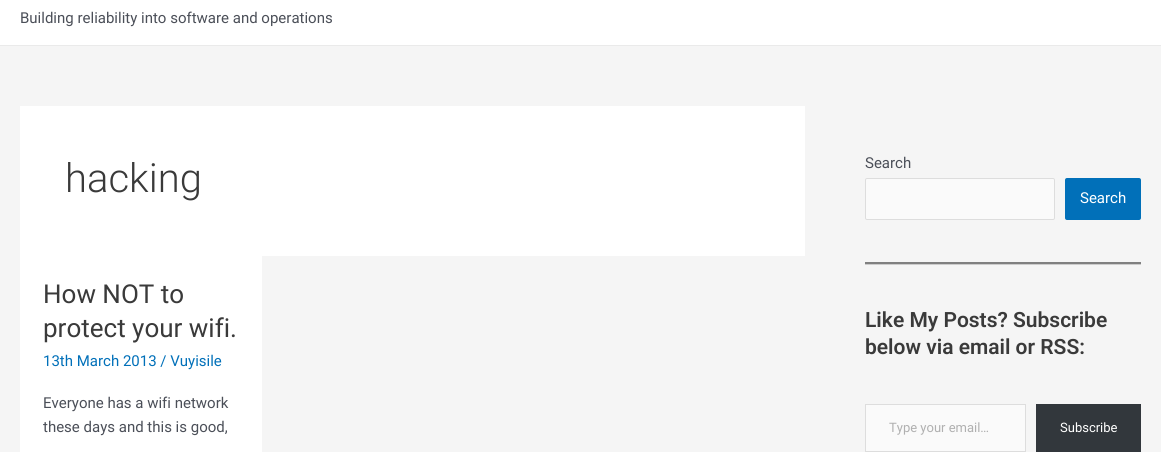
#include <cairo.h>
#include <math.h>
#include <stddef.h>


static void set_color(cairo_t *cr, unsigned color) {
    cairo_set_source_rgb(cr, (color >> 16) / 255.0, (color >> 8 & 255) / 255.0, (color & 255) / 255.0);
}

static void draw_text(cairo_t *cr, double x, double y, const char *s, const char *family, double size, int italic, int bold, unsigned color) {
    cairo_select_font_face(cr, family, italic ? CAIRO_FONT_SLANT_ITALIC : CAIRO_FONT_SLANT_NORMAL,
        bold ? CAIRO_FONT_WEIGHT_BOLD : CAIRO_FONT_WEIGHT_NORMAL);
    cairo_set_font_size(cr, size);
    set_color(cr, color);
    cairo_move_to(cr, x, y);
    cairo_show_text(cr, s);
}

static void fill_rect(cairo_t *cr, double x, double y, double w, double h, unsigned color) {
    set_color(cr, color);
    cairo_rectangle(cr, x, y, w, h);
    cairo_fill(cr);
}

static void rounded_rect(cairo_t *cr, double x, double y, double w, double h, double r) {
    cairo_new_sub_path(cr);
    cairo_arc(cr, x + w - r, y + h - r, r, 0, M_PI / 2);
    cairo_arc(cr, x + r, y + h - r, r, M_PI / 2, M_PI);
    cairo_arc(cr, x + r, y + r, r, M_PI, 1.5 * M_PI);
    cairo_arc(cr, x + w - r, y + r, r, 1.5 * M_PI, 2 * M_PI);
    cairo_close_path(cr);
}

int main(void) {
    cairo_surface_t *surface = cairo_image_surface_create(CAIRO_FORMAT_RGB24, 1161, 452);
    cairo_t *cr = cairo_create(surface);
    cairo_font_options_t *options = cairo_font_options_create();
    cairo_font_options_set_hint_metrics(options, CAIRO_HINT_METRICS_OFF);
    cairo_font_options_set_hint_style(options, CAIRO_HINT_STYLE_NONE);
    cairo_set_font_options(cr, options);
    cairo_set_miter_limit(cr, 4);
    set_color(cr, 0xF5F5F5);
    cairo_paint(cr);
    fill_rect(cr, 0, 0, 1161, 45, 0xFFFFFF);
    fill_rect(cr, 0, 45, 1161, 1, 0xEAEAEA);
    draw_text(cr, 20, 23, "Building reliability into software and operations", "Roboto", 15, 0, 0, 0x4B4F58);
    fill_rect(cr, 20, 106, 785, 150, 0xFFFFFF);
    draw_text(cr, 65, 192, "hacking", "Roboto Light", 40, 0, 0, 0x3A3A3A);
    fill_rect(cr, 20, 256, 242, 196, 0xFFFFFF);
    draw_text(cr, 43, 303, "How NOT to", "Roboto", 26, 0, 0, 0x3A3A3A);
    draw_text(cr, 43, 337, "protect your wifi.", "Roboto", 26, 0, 0, 0x3A3A3A);
    draw_text(cr, 43, 366, "13th March 2013 / Vuyisile", "Roboto", 15, 0, 0, 0x0170B9);
    draw_text(cr, 43, 408, "Everyone has a wifi network", "Roboto", 15, 0, 0, 0x4B4F58);
    draw_text(cr, 43, 432, "these days and this is good,", "Roboto", 15, 0, 0, 0x4B4F58);
    draw_text(cr, 865, 168, "Search", "Roboto", 15, 0, 0, 0x4B4F58);
    set_color(cr, 0xFAFAFA);
    rounded_rect(cr, 865.5, 178.5, 189, 41, 1.5);
    cairo_fill_preserve(cr);
    set_color(cr, 0xDDDDDD);
    cairo_set_line_width(cr, 1);
    cairo_stroke(cr);
    set_color(cr, 0x0170B9);
    rounded_rect(cr, 1065, 178, 76, 42, 2);
    cairo_fill(cr);
    draw_text(cr, 1080, 203, "Search", "Roboto", 15, 0, 0, 0xFFFFFF);
    fill_rect(cr, 865, 264, 276, 1, 0xCCCCCC);
    fill_rect(cr, 865, 262, 276, 2, 0x808080);
    draw_text(cr, 865, 327, "Like My Posts? Subscribe", "Roboto SemiBold", 21, 0, 0, 0x3A3A3A);
    draw_text(cr, 865, 354, "below via email or RSS:", "Roboto SemiBold", 21, 0, 0, 0x3A3A3A);
    set_color(cr, 0xFAFAFA);
    cairo_rectangle(cr, 865.5, 404.5, 160, 47);
    cairo_fill_preserve(cr);
    set_color(cr, 0xDDDDDD);
    cairo_stroke(cr);
    draw_text(cr, 889, 432, "Type your email…", "Roboto", 13, 0, 0, 0xB0B0B0);
    fill_rect(cr, 1036, 404, 105, 48, 0x32373C);
    draw_text(cr, 1060, 432, "Subscribe", "Roboto", 13, 0, 0, 0xFFFFFF);
    cairo_surface_write_to_png(surface, "output.png");
    cairo_font_options_destroy(options);
    cairo_destroy(cr);
    cairo_surface_destroy(surface);
    return 0;
}
